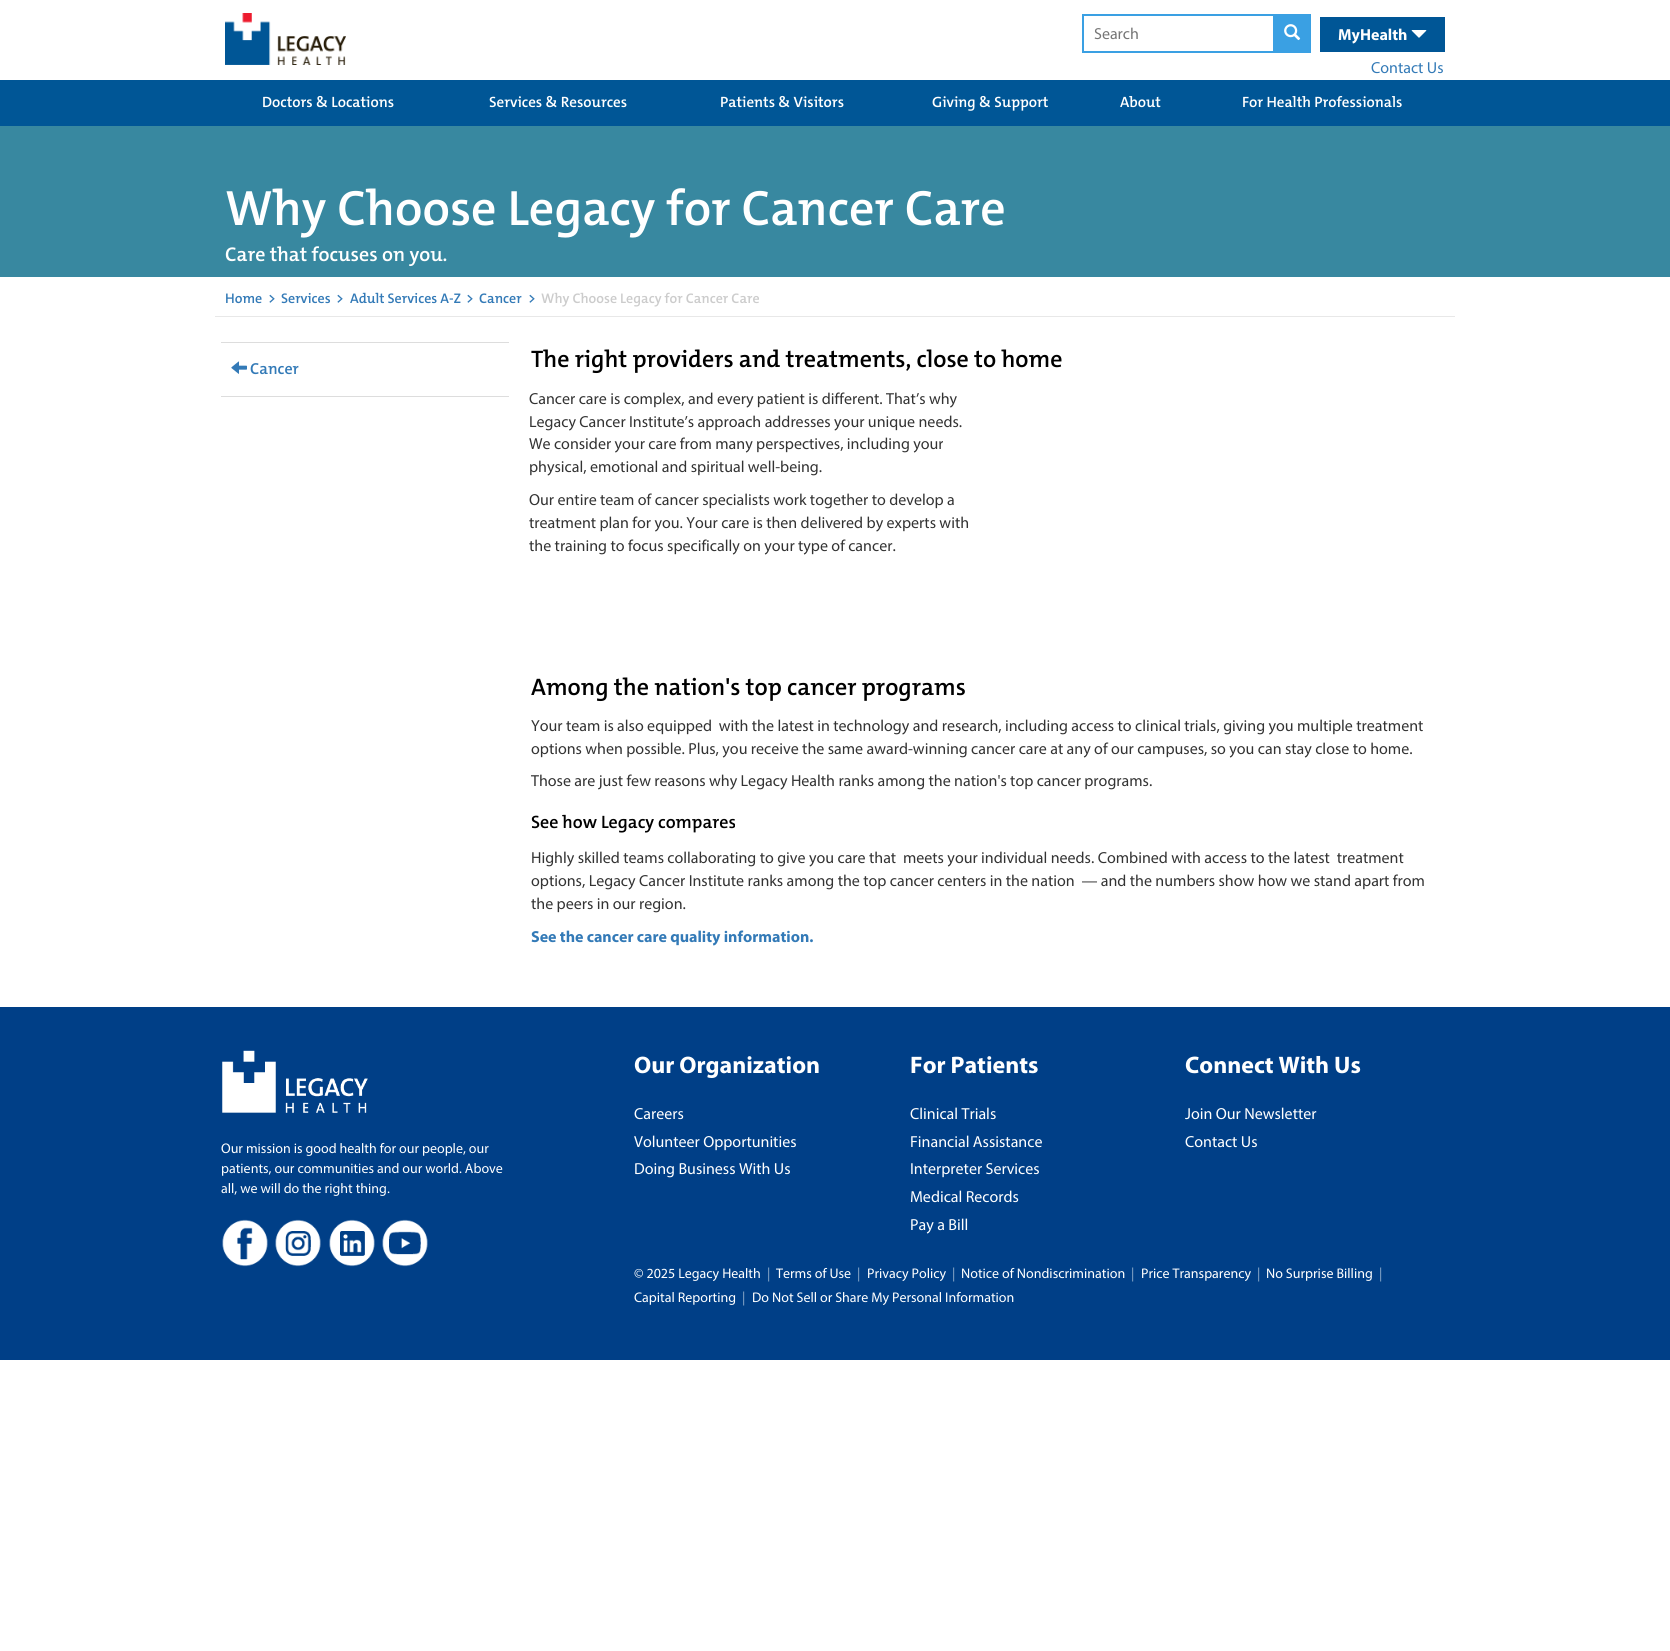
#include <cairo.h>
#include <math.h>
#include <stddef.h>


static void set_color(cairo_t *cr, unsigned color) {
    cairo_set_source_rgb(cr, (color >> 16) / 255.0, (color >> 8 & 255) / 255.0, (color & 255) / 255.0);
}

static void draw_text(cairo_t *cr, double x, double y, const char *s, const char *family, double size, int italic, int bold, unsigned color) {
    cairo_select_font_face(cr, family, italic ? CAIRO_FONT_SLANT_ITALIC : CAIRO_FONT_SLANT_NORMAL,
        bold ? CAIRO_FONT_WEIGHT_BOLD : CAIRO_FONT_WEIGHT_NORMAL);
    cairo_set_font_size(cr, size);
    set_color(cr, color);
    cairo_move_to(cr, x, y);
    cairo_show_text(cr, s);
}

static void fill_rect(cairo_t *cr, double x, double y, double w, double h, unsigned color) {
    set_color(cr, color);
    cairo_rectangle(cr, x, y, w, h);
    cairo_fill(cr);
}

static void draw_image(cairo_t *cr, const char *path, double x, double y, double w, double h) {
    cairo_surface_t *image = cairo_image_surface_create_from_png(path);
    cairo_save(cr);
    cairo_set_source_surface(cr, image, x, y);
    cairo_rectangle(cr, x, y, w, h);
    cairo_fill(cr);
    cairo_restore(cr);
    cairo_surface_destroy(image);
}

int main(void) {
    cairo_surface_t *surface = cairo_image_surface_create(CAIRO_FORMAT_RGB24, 1670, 1651);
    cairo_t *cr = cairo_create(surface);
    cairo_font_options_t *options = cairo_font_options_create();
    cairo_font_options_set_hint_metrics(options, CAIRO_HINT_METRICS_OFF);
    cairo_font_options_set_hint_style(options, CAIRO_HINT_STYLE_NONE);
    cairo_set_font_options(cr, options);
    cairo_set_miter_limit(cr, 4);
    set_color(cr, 0xFFFFFF);
    cairo_paint(cr);
    draw_image(cr, "assets/img1.png", 225, 13, 121, 52);
    cairo_rectangle(cr, 1083, 15, 191, 37);
    set_color(cr, 0x3AA0E3);
    cairo_stroke(cr);
    draw_text(cr, 1094, 39, "Search", "Myriad", 16, 0, 0, 0x757575);
    fill_rect(cr, 1275, 14, 36, 39, 0x3AA0E3);
    draw_image(cr, "assets/img2.png", 1284, 24, 17, 17);
    fill_rect(cr, 1320, 17, 125, 35, 0x005696);
    draw_text(cr, 1338, 40, "MyHealth", "Myriad", 16, 0, 1, 0xFFFFFF);
    draw_image(cr, "assets/img3.png", 1411, 30, 16, 8);
    draw_text(cr, 1371, 73, "Contact Us", "Myriad", 16, 0, 0, 0x337AB7);
    fill_rect(cr, 0, 80, 1670, 46, 0x005696);
    draw_text(cr, 262, 107, "Doctors & Locations", "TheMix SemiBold", 15, 0, 0, 0xFFFFFF);
    draw_text(cr, 489, 107, "Services & Resources", "TheMix SemiBold", 15, 0, 0, 0xFFFFFF);
    draw_text(cr, 720, 107, "Patients & Visitors", "TheMix SemiBold", 15, 0, 0, 0xFFFFFF);
    draw_text(cr, 932, 107, "Giving & Support", "TheMix SemiBold", 15, 0, 0, 0xFFFFFF);
    draw_text(cr, 1120, 107, "About", "TheMix SemiBold", 15, 0, 0, 0xFFFFFF);
    draw_text(cr, 1242, 107, "For Health Professionals", "TheMix SemiBold", 15, 0, 0, 0xFFFFFF);
    fill_rect(cr, 0, 126, 1670, 151, 0x3888A0);
    draw_text(cr, 225, 225, "Why Choose Legacy for Cancer Care", "TheMix SemiBold", 50, 0, 0, 0xFFFFFF);
    draw_text(cr, 225, 261, "Care that focuses on you.", "TheMix SemiBold", 20, 0, 0, 0xFFFFFF);
    fill_rect(cr, 215, 316, 1240, 1, 0xE8E8E8);
    draw_text(cr, 225, 303, "Home", "TheMix SemiBold", 14, 0, 0, 0x337AB7);
    draw_text(cr, 268, 303, ">", "TheMix SemiBold", 14, 0, 0, 0x337AB7);
    draw_text(cr, 281, 303, "Services", "TheMix SemiBold", 14, 0, 0, 0x337AB7);
    draw_text(cr, 336, 303, ">", "TheMix SemiBold", 14, 0, 0, 0x337AB7);
    draw_text(cr, 350, 303, "Adult Services A-Z", "TheMix SemiBold", 14, 0, 0, 0x337AB7);
    draw_text(cr, 466, 303, ">", "TheMix SemiBold", 14, 0, 0, 0x337AB7);
    draw_text(cr, 479, 303, "Cancer", "TheMix SemiBold", 14, 0, 0, 0x337AB7);
    draw_text(cr, 528, 303, ">", "TheMix SemiBold", 14, 0, 0, 0x337AB7);
    draw_text(cr, 541, 303, "Why Choose Legacy for Cancer Care", "TheMix SemiBold", 14, 0, 0, 0xCCCCCC);
    fill_rect(cr, 221, 342, 288, 1, 0xDDDDDD);
    fill_rect(cr, 221, 396, 288, 1, 0xDDDDDD);
    draw_image(cr, "assets/img4.png", 231, 361, 16, 13);
    draw_text(cr, 250, 374, "Cancer", "TheMix SemiBold", 16, 0, 0, 0x337AB7);
    draw_text(cr, 531, 367, "The right providers and treatments, close to home", "TheMix SemiBold", 24, 0, 0, 0x000000);
    draw_text(cr, 529, 404, "Cancer care is complex, and every patient is different. That’s why", "Myriad", 16, 0, 0, 0x333333);
    draw_text(cr, 529, 427, "Legacy Cancer Institute’s approach addresses your unique needs.", "Myriad", 16, 0, 0, 0x333333);
    draw_text(cr, 529, 449, "We consider your care from many perspectives, including your", "Myriad", 16, 0, 0, 0x333333);
    draw_text(cr, 529, 472, "physical, emotional and spiritual well-being.", "Myriad", 16, 0, 0, 0x333333);
    draw_text(cr, 529, 505, "Our entire team of cancer specialists work together to develop a", "Myriad", 16, 0, 0, 0x333333);
    draw_text(cr, 529, 528, "treatment plan for you. Your care is then delivered by experts with", "Myriad", 16, 0, 0, 0x333333);
    draw_text(cr, 529, 551, "the training to focus specifically on your type of cancer.", "Myriad", 16, 0, 0, 0x333333);
    draw_text(cr, 531, 695, "Among the nation's top cancer programs", "TheMix SemiBold", 24, 0, 0, 0x000000);
    draw_text(cr, 531, 731, "Your team is also equipped  with the latest in technology and research, including access to clinical trials, giving you multiple treatment", "Myriad", 16, 0, 0, 0x333333);
    draw_text(cr, 531, 754, "options when possible. Plus, you receive the same award-winning cancer care at any of our campuses, so you can stay close to home.", "Myriad", 16, 0, 0, 0x333333);
    draw_text(cr, 531, 786, "Those are just few reasons why Legacy Health ranks among the nation's top cancer programs.", "Myriad", 16, 0, 0, 0x333333);
    draw_text(cr, 531, 828, "See how Legacy compares", "TheMix SemiBold", 18, 0, 0, 0x000000);
    draw_text(cr, 531, 863, "Highly skilled teams collaborating to give you care that  meets your individual needs. Combined with access to the latest  treatment", "Myriad", 16, 0, 0, 0x333333);
    draw_text(cr, 531, 886, "options, Legacy Cancer Institute ranks among the top cancer centers in the nation  — and the numbers show how we stand apart from", "Myriad", 16, 0, 0, 0x333333);
    draw_text(cr, 531, 909, "the peers in our region.", "Myriad", 16, 0, 0, 0x333333);
    draw_text(cr, 531, 942, "See the cancer care quality information.", "Myriad", 16, 0, 1, 0x337AB7);
    fill_rect(cr, 0, 1007, 1670, 353, 0x003F87);
    draw_image(cr, "assets/img5.png", 222, 1050, 146, 63);
    draw_text(cr, 221, 1153, "Our mission is good health for our people, our", "Myriad", 14, 0, 0, 0xFFFFFF);
    draw_text(cr, 221, 1173, "patients, our communities and our world. Above", "Myriad", 14, 0, 0, 0xFFFFFF);
    draw_text(cr, 221, 1193, "all, we will do the right thing.", "Myriad", 14, 0, 0, 0xFFFFFF);
    draw_image(cr, "assets/img6.png", 222, 1219, 46, 48);
    draw_image(cr, "assets/img7.png", 275, 1219, 46, 48);
    draw_image(cr, "assets/img8.png", 329, 1219, 46, 48);
    draw_image(cr, "assets/img9.png", 382, 1219, 46, 48);
    draw_text(cr, 634, 1073, "Our Organization", "Myriad", 24, 0, 1, 0xFFFFFF);
    draw_text(cr, 634, 1119, "Careers", "Myriad", 16, 0, 0, 0xFFFFFF);
    draw_text(cr, 634, 1147, "Volunteer Opportunities", "Myriad", 16, 0, 0, 0xFFFFFF);
    draw_text(cr, 634, 1174, "Doing Business With Us", "Myriad", 16, 0, 0, 0xFFFFFF);
    draw_text(cr, 910, 1073, "For Patients", "Myriad", 24, 0, 1, 0xFFFFFF);
    draw_text(cr, 910, 1119, "Clinical Trials", "Myriad", 16, 0, 0, 0xFFFFFF);
    draw_text(cr, 910, 1147, "Financial Assistance", "Myriad", 16, 0, 0, 0xFFFFFF);
    draw_text(cr, 910, 1174, "Interpreter Services", "Myriad", 16, 0, 0, 0xFFFFFF);
    draw_text(cr, 910, 1202, "Medical Records", "Myriad", 16, 0, 0, 0xFFFFFF);
    draw_text(cr, 910, 1230, "Pay a Bill", "Myriad", 16, 0, 0, 0xFFFFFF);
    draw_text(cr, 1185, 1073, "Connect With Us", "Myriad", 24, 0, 1, 0xFFFFFF);
    draw_text(cr, 1185, 1119, "Join Our Newsletter", "Myriad", 16, 0, 0, 0xFFFFFF);
    draw_text(cr, 1185, 1147, "Contact Us", "Myriad", 16, 0, 0, 0xFFFFFF);
    draw_text(cr, 634, 1278, "© 2025 Legacy Health", "Myriad", 14, 0, 0, 0xFFFFFF);
    draw_text(cr, 767, 1278, "|", "Myriad", 14, 0, 0, 0x8CA9C9);
    draw_text(cr, 776, 1278, "Terms of Use", "Myriad", 14, 0, 0, 0xFFFFFF);
    draw_text(cr, 857, 1278, "|", "Myriad", 14, 0, 0, 0x8CA9C9);
    draw_text(cr, 867, 1278, "Privacy Policy", "Myriad", 14, 0, 0, 0xFFFFFF);
    draw_text(cr, 952, 1278, "|", "Myriad", 14, 0, 0, 0x8CA9C9);
    draw_text(cr, 961, 1278, "Notice of Nondiscrimination", "Myriad", 14, 0, 0, 0xFFFFFF);
    draw_text(cr, 1131, 1278, "|", "Myriad", 14, 0, 0, 0x8CA9C9);
    draw_text(cr, 1141, 1278, "Price Transparency", "Myriad", 14, 0, 0, 0xFFFFFF);
    draw_text(cr, 1257, 1278, "|", "Myriad", 14, 0, 0, 0x8CA9C9);
    draw_text(cr, 1266, 1278, "No Surprise Billing", "Myriad", 14, 0, 0, 0xFFFFFF);
    draw_text(cr, 1379, 1278, "|", "Myriad", 14, 0, 0, 0x8CA9C9);
    draw_text(cr, 634, 1302, "Capital Reporting", "Myriad", 14, 0, 0, 0xFFFFFF);
    draw_text(cr, 742, 1302, "|", "Myriad", 14, 0, 0, 0x8CA9C9);
    draw_text(cr, 752, 1302, "Do Not Sell or Share My Personal Information", "Myriad", 14, 0, 0, 0xFFFFFF);
    cairo_surface_write_to_png(surface, "output.png");
    cairo_font_options_destroy(options);
    cairo_destroy(cr);
    cairo_surface_destroy(surface);
    return 0;
}
